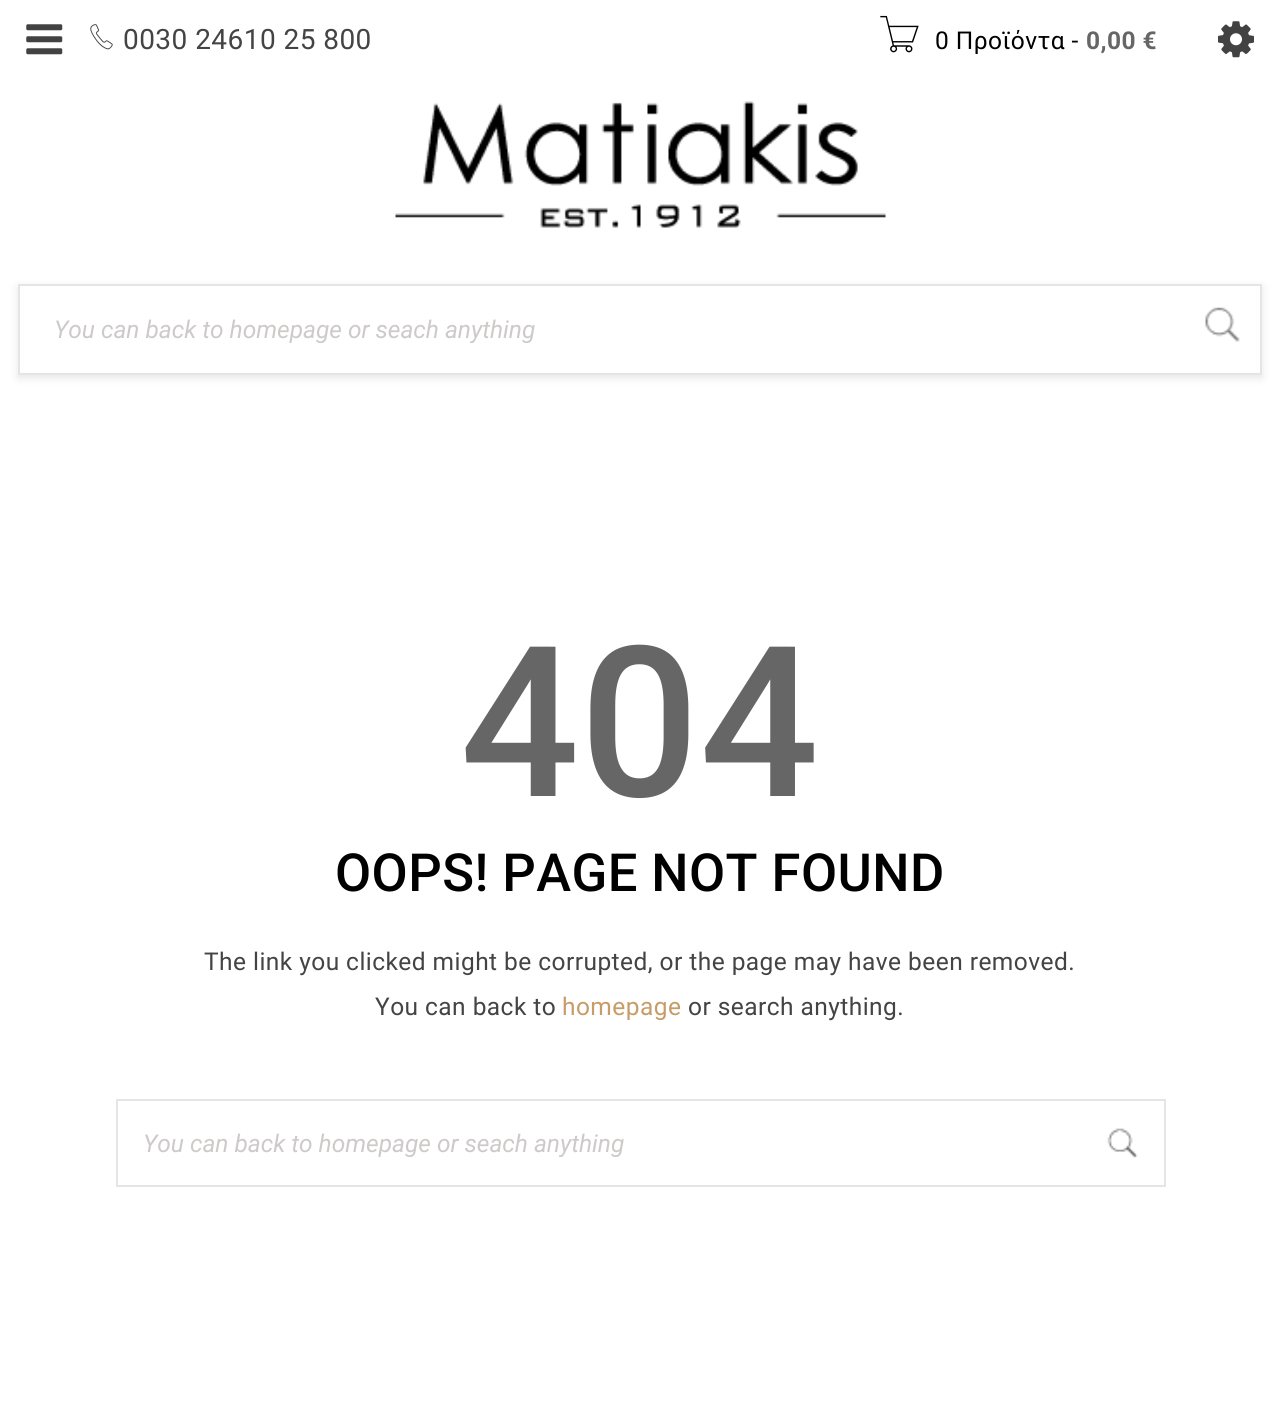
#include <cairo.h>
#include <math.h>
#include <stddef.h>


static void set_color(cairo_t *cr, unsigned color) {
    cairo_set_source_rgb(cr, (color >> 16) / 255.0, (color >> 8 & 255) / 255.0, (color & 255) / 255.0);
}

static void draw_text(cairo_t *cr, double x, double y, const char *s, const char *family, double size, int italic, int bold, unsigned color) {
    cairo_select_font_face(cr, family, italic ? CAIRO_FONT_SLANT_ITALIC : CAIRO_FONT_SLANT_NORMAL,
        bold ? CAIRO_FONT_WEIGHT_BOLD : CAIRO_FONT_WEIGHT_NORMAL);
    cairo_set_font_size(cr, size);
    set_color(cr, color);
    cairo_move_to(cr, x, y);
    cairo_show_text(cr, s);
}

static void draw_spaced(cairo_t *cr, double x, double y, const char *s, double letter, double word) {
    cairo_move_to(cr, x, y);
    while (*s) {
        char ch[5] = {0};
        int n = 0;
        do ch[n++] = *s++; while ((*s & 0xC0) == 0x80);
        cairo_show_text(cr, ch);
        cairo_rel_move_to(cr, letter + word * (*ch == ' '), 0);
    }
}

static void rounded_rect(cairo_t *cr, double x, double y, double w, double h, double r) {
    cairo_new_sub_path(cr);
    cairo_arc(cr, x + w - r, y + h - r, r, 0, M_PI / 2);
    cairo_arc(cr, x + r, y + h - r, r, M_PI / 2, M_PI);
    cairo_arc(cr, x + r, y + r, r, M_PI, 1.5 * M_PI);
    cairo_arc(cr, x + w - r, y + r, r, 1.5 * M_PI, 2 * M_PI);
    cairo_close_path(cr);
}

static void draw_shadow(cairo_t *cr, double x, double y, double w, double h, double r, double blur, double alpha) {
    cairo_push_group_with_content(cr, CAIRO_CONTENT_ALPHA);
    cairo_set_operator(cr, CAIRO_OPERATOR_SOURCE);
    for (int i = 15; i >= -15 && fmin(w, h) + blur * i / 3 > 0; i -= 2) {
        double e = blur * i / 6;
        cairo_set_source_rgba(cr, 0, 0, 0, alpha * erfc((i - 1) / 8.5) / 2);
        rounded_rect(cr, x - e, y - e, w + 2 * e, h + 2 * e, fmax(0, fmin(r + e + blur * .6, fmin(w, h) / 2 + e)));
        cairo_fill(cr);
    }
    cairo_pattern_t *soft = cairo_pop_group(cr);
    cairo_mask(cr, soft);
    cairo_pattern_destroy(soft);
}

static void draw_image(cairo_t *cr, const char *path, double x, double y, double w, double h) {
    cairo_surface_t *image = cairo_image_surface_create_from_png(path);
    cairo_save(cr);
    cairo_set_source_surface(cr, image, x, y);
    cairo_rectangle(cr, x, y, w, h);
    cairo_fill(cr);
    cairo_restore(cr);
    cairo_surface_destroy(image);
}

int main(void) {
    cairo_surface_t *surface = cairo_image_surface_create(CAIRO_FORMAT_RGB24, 1279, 1408);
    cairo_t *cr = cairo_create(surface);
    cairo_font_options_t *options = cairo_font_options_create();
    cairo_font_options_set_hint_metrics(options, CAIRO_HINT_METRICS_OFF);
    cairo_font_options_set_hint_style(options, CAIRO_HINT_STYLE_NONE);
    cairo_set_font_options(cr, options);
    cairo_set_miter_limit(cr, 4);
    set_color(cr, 0xFFFFFF);
    cairo_paint(cr);
    draw_image(cr, "assets/img1.png", 26, 24, 37, 31);
    draw_image(cr, "assets/img2.png", 90, 24, 23, 26);
    cairo_select_font_face(cr, "Roboto", CAIRO_FONT_SLANT_NORMAL, CAIRO_FONT_WEIGHT_NORMAL);
    cairo_set_font_size(cr, 28);
    set_color(cr, 0x444444);
    draw_spaced(cr, 123, 49, "0030 24610 25 800", 0.45, 0);
    draw_image(cr, "assets/img3.png", 880, 15, 39, 38);
    cairo_set_font_size(cr, 24.5);
    set_color(cr, 0x000000);
    draw_spaced(cr, 935, 49, "0 Προϊόντα -", 0.45, 0);
    cairo_select_font_face(cr, "Roboto", CAIRO_FONT_SLANT_NORMAL, CAIRO_FONT_WEIGHT_BOLD);
    set_color(cr, 0x666666);
    draw_spaced(cr, 1086, 49, "0,00 €", 0.45, 0);
    draw_image(cr, "assets/img4.png", 1218, 21, 36, 37);
    draw_image(cr, "assets/img5.png", 395, 101, 491, 127);
    cairo_save(cr);
    cairo_set_fill_rule(cr, CAIRO_FILL_RULE_EVEN_ODD);
    cairo_new_path(cr);
    cairo_move_to(cr, 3, 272);
    cairo_line_to(cr, 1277, 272);
    cairo_line_to(cr, 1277, 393);
    cairo_line_to(cr, 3, 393);
    cairo_close_path(cr);
    cairo_move_to(cr, 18, 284);
    cairo_line_to(cr, 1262, 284);
    cairo_line_to(cr, 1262, 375);
    cairo_line_to(cr, 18, 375);
    cairo_close_path(cr);
    cairo_clip(cr);
    set_color(cr, 0x000000);
    draw_shadow(cr, 18, 287, 1244, 91, 0, 4.5, 0.1);
    cairo_restore(cr);
    cairo_rectangle(cr, 19, 285, 1242, 89);
    set_color(cr, 0xE5E5E5);
    cairo_stroke(cr);
    cairo_save(cr);
    cairo_rectangle(cr, 54, 315, 1136, 28);
    cairo_clip(cr);
    draw_text(cr, 54, 338, "You can back to homepage or seach anything", "Roboto", 24.5, 1, 0, 0xCECACA);
    cairo_restore(cr);
    draw_image(cr, "assets/img6.png", 1205, 307, 35, 35);
    cairo_select_font_face(cr, "Roboto Medium", CAIRO_FONT_SLANT_NORMAL, CAIRO_FONT_WEIGHT_NORMAL);
    cairo_set_font_size(cr, 210);
    set_color(cr, 0x666666);
    draw_spaced(cr, 460, 796, "404", 0.45, 0);
    cairo_set_font_size(cr, 52.5);
    set_color(cr, 0x000000);
    draw_spaced(cr, 335, 891, "OOPS! PAGE NOT FOUND", 0.45, 0);
    cairo_select_font_face(cr, "Roboto", CAIRO_FONT_SLANT_NORMAL, CAIRO_FONT_WEIGHT_NORMAL);
    cairo_set_font_size(cr, 24.5);
    set_color(cr, 0x444444);
    draw_spaced(cr, 204, 970, "The link you clicked might be corrupted, or the page may have been removed.", 0.45, 0);
    draw_spaced(cr, 375, 1015, "You can back to", 0.45, 0);
    set_color(cr, 0xC69C69);
    draw_spaced(cr, 562, 1015, "homepage", 0.45, 0);
    set_color(cr, 0x444444);
    draw_spaced(cr, 688, 1015, "or search anything.", 0.45, 0);
    cairo_rectangle(cr, 117, 1100, 1048, 86);
    set_color(cr, 0xE5E5E5);
    cairo_stroke(cr);
    cairo_save(cr);
    cairo_rectangle(cr, 144, 1129, 950, 28);
    cairo_clip(cr);
    draw_text(cr, 143, 1152, "You can back to homepage or seach anything", "Roboto", 24.5, 1, 0, 0xCECACA);
    cairo_restore(cr);
    draw_image(cr, "assets/img7.png", 1107, 1128, 31, 30);
    cairo_surface_write_to_png(surface, "output.png");
    cairo_font_options_destroy(options);
    cairo_destroy(cr);
    cairo_surface_destroy(surface);
    return 0;
}
